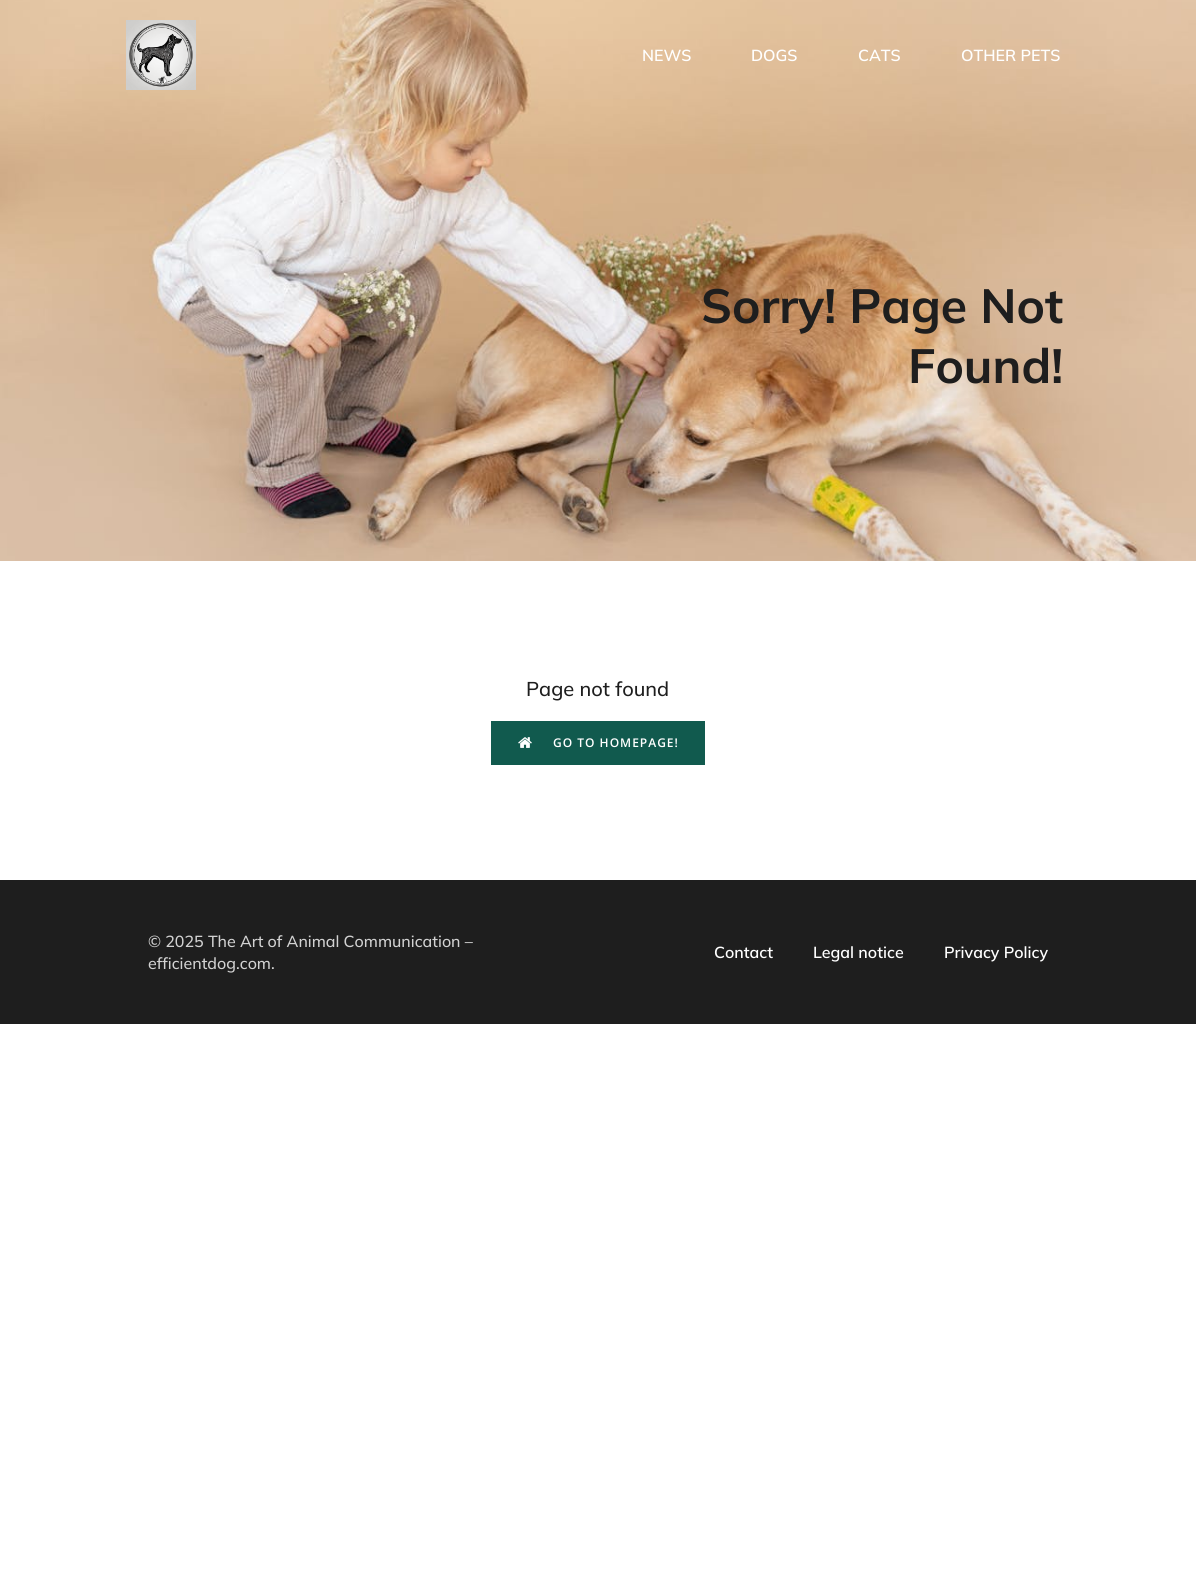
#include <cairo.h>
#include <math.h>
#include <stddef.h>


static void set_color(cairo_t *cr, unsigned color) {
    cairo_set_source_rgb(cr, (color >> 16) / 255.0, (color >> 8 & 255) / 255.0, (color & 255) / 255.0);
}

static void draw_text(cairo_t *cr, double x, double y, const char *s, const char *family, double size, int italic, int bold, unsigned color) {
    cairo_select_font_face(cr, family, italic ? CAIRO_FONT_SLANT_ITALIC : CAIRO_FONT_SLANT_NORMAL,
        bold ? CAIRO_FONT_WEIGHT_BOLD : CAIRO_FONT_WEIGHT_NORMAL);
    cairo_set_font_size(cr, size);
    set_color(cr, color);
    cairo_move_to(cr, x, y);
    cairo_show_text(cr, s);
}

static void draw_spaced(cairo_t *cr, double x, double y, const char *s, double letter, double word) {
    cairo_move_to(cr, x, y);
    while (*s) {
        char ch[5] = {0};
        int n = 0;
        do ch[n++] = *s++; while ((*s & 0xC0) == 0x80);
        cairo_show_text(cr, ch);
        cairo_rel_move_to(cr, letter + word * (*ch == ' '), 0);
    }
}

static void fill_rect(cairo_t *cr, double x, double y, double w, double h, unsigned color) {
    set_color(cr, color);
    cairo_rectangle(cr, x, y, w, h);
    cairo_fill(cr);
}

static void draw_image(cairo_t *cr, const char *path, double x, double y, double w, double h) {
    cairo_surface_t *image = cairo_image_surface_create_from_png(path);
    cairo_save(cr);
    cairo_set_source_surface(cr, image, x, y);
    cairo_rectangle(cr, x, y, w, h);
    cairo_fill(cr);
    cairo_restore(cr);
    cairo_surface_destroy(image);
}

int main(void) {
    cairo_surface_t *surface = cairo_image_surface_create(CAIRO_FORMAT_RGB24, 1196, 1595);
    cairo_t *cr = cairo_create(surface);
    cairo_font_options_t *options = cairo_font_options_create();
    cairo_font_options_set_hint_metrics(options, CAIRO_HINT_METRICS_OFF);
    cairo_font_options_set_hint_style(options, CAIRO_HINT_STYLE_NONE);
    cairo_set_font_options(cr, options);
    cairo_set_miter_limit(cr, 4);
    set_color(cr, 0xFFFFFF);
    cairo_paint(cr);
    draw_image(cr, "assets/img2.png", 0, 0, 1196, 561);
    draw_image(cr, "assets/img1.png", 126, 20, 70, 70);
    draw_text(cr, 642, 61, "NEWS", "Mulish SemiBold", 16, 0, 0, 0xFFFFFF);
    draw_text(cr, 751, 61, "DOGS", "Mulish SemiBold", 16, 0, 0, 0xFFFFFF);
    draw_text(cr, 858, 61, "CATS", "Mulish SemiBold", 16, 0, 0, 0xFFFFFF);
    draw_text(cr, 961, 61, "OTHER PETS", "Mulish SemiBold", 16, 0, 0, 0xFFFFFF);
    draw_text(cr, 701, 323, "Sorry! Page Not", "Mulish", 48, 0, 1, 0x1E1E1E);
    draw_text(cr, 908, 383, "Found!", "Mulish", 48, 0, 1, 0x1E1E1E);
    draw_text(cr, 526, 696, "Page not found", "Mulish Medium", 20, 0, 0, 0x1E1E1E);
    fill_rect(cr, 491, 721, 214, 44, 0x115A4E);
    draw_image(cr, "assets/img3.png", 518, 737, 14, 11);
    cairo_select_font_face(cr, "Open Sans SemiBold", CAIRO_FONT_SLANT_NORMAL, CAIRO_FONT_WEIGHT_NORMAL);
    cairo_set_font_size(cr, 12);
    set_color(cr, 0xFFFFFF);
    draw_spaced(cr, 553, 747, "GO TO HOMEPAGE!", 1, 0);
    fill_rect(cr, 0, 880, 1196, 144, 0x1E1E1E);
    draw_text(cr, 148, 947, "© 2025 The Art of Animal Communication –", "Mulish Medium", 16, 0, 0, 0xD2D2D2);
    draw_text(cr, 148, 969, "efficientdog.com.", "Mulish Medium", 16, 0, 0, 0xD2D2D2);
    draw_text(cr, 714, 958, "Contact", "Mulish SemiBold", 16, 0, 0, 0xFFFFFF);
    draw_text(cr, 813, 958, "Legal notice", "Mulish SemiBold", 16, 0, 0, 0xFFFFFF);
    draw_text(cr, 944, 958, "Privacy Policy", "Mulish SemiBold", 16, 0, 0, 0xFFFFFF);
    cairo_surface_write_to_png(surface, "output.png");
    cairo_font_options_destroy(options);
    cairo_destroy(cr);
    cairo_surface_destroy(surface);
    return 0;
}
